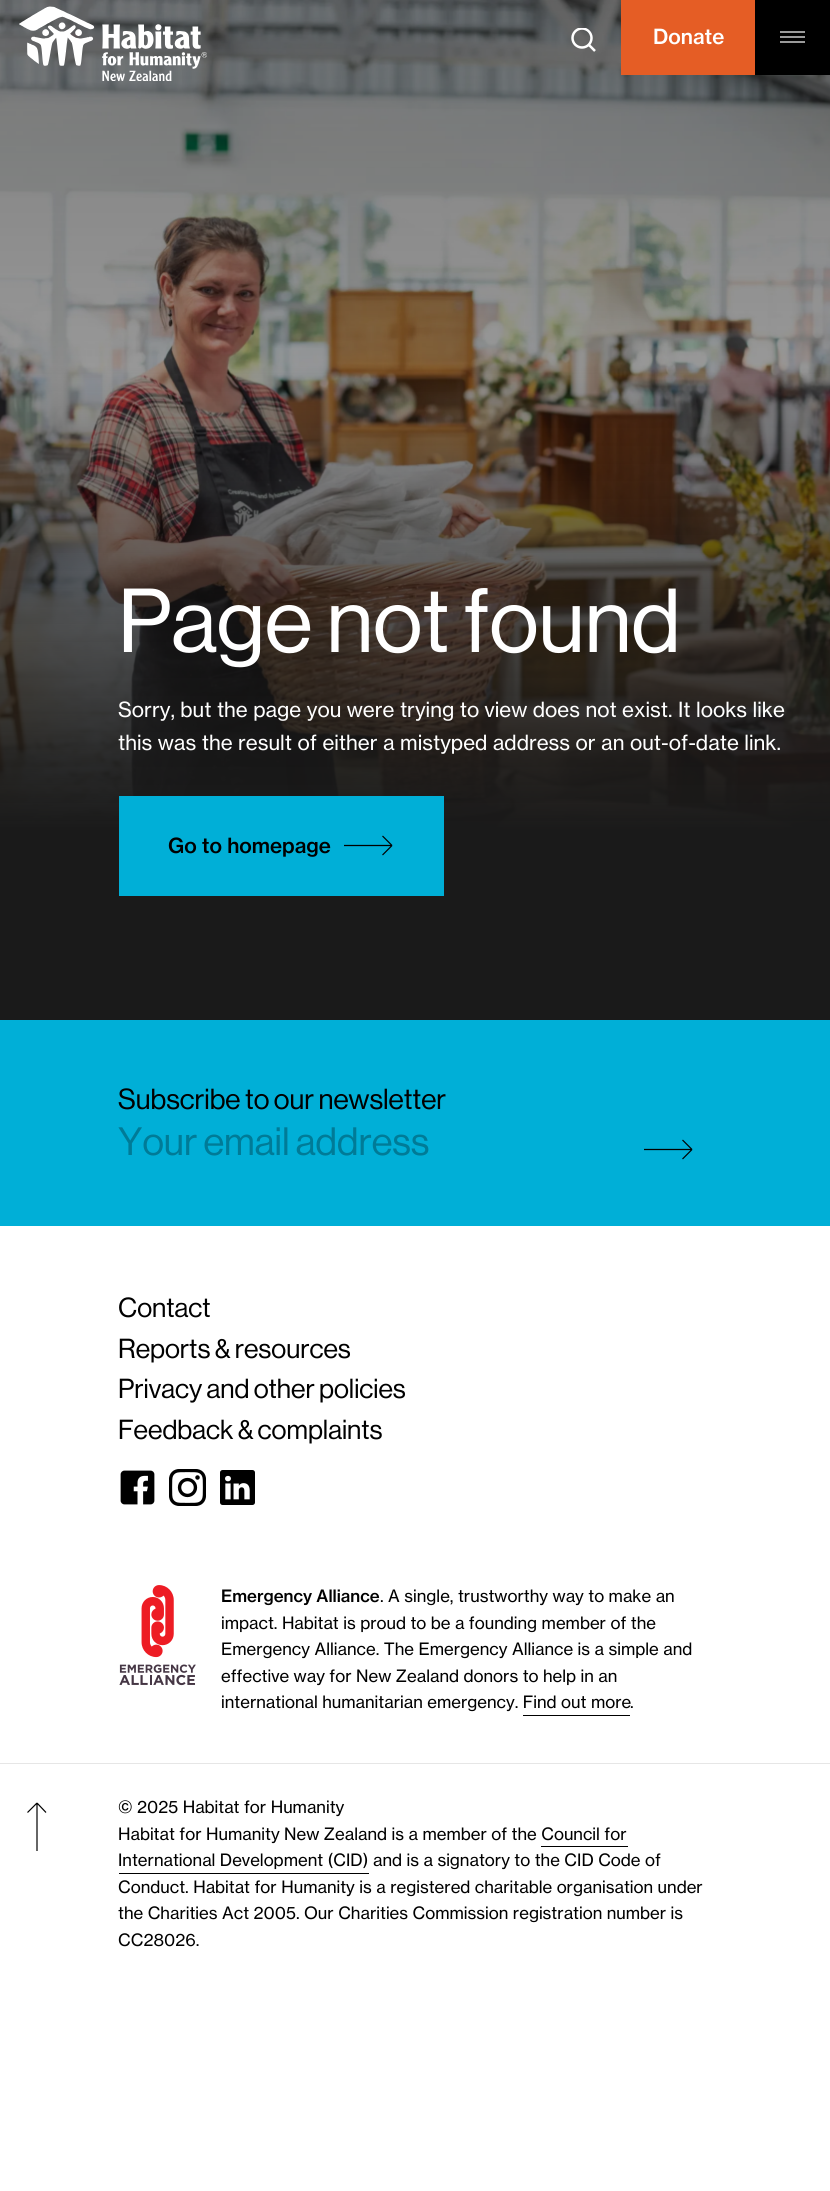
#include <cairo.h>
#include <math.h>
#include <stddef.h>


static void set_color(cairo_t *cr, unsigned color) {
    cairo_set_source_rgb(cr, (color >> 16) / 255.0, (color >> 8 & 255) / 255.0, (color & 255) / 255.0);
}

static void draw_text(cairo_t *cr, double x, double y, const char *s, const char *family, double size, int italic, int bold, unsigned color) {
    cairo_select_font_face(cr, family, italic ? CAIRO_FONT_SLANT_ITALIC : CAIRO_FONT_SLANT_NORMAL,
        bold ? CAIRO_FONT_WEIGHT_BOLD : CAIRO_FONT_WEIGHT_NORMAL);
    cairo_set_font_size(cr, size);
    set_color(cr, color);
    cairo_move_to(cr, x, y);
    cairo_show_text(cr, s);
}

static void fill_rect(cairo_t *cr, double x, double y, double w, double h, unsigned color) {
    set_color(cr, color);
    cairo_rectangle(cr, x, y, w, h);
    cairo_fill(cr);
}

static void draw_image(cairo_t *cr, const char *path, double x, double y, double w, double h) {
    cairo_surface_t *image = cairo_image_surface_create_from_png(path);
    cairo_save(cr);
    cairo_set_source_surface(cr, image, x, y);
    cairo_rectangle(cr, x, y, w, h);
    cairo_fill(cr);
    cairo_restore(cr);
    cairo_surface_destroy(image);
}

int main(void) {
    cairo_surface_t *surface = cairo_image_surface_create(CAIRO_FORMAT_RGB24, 830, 2191);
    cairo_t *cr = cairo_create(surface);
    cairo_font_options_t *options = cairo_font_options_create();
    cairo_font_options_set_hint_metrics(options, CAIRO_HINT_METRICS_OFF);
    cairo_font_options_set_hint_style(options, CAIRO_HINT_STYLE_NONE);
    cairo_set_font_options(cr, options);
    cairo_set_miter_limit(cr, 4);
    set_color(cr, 0xFFFFFF);
    cairo_paint(cr);
    draw_image(cr, "assets/img2.png", 0, 0, 830, 830);
    draw_image(cr, "assets/img1.png", 19, 6, 188, 75);
    cairo_save(cr);
    cairo_rectangle(cr, 571, 28, 25, 25);
    cairo_clip(cr);
    cairo_arc(cr, 582, 38, 9.5, 0, 2 * M_PI);
    set_color(cr, 0xFFFFFF);
    cairo_set_line_width(cr, 2.5);
    cairo_stroke(cr);
    cairo_restore(cr);
    cairo_new_path(cr);
    cairo_move_to(cr, 589, 45);
    cairo_line_to(cr, 595, 51);
    set_color(cr, 0xFFFFFF);
    cairo_set_line_width(cr, 2.5);
    cairo_stroke(cr);
    fill_rect(cr, 621, 0, 134, 75, 0xE55D25);
    draw_text(cr, 653, 44, "Donate", "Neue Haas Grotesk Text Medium", 20.6, 0, 0, 0xFFFFFF);
    fill_rect(cr, 755, 0, 75, 75, 0x000000);
    cairo_new_path(cr);
    cairo_move_to(cr, 780, 37);
    cairo_line_to(cr, 805, 37);
    cairo_move_to(cr, 780, 32);
    cairo_line_to(cr, 805, 32);
    cairo_move_to(cr, 780, 42);
    cairo_line_to(cr, 805, 42);
    set_color(cr, 0xFFFFFF);
    cairo_set_line_width(cr, 1.2);
    cairo_stroke(cr);
    fill_rect(cr, 0, 830, 830, 190, 0x1A1A1A);
    draw_text(cr, 118, 652, "Page not found", "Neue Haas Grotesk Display", 88.75, 0, 0, 0xFFFFFF);
    draw_text(cr, 118, 717, "Sorry, but the page you were trying to view does not exist. It looks like", "Neue Haas Grotesk Text", 20.6, 0, 0, 0xFFFFFF);
    draw_text(cr, 118, 750, "this was the result of either a mistyped address or an out-of-date link.", "Neue Haas Grotesk Text", 20.6, 0, 0, 0xFFFFFF);
    fill_rect(cr, 119, 796, 325, 100, 0x00AFD7);
    draw_text(cr, 168, 853, "Go to homepage", "Neue Haas Grotesk Text Medium", 20.6, 0, 0, 0x000000);
    cairo_new_path(cr);
    cairo_move_to(cr, 344, 845.5);
    cairo_line_to(cr, 392, 845.5);
    cairo_move_to(cr, 392, 845.5);
    cairo_line_to(cr, 382.5, 836);
    cairo_move_to(cr, 392, 845.5);
    cairo_line_to(cr, 382.5, 855);
    cairo_stroke(cr);
    fill_rect(cr, 0, 1020, 830, 206, 0x00AFD7);
    draw_text(cr, 118, 1109, "Subscribe to our newsletter", "Neue Haas Grotesk Display", 28.4, 0, 0, 0x000000);
    draw_text(cr, 118, 1155, "Your email address", "Neue Haas Grotesk Display", 38.75, 0, 0, 0x007B97);
    cairo_new_path(cr);
    cairo_move_to(cr, 644, 1149.5);
    cairo_line_to(cr, 692, 1149.5);
    cairo_move_to(cr, 692, 1149.5);
    cairo_line_to(cr, 682.5, 1140);
    cairo_move_to(cr, 692, 1149.5);
    cairo_line_to(cr, 682.5, 1159);
    set_color(cr, 0x000000);
    cairo_stroke(cr);
    draw_text(cr, 118, 1317, "Contact", "Neue Haas Grotesk Display", 27, 0, 0, 0x000000);
    draw_text(cr, 118, 1358, "Reports & resources", "Neue Haas Grotesk Display", 27, 0, 0, 0x000000);
    draw_text(cr, 118, 1398, "Privacy and other policies", "Neue Haas Grotesk Display", 27, 0, 0, 0x000000);
    draw_text(cr, 118, 1439, "Feedback & complaints", "Neue Haas Grotesk Display", 27, 0, 0, 0x000000);
    draw_image(cr, "assets/img3.png", 120, 1470, 35, 35);
    draw_image(cr, "assets/img4.png", 169, 1469, 37, 37);
    draw_image(cr, "assets/img5.png", 220, 1470, 35, 35);
    draw_image(cr, "assets/img6.png", 119, 1585, 77, 101);
    draw_text(cr, 221, 1602, "Emergency Alliance", "Neue Haas Grotesk Text Medium", 16.8, 0, 0, 0x000000);
    draw_text(cr, 380, 1602, ". A single, trustworthy way to make an", "Neue Haas Grotesk Text", 16.8, 0, 0, 0x000000);
    draw_text(cr, 221, 1629, "impact. Habitat is proud to be a founding member of the", "Neue Haas Grotesk Text", 16.8, 0, 0, 0x000000);
    draw_text(cr, 221, 1655, "Emergency Alliance. The Emergency Alliance is a simple and", "Neue Haas Grotesk Text", 16.8, 0, 0, 0x000000);
    draw_text(cr, 221, 1682, "effective way for New Zealand donors to help in an", "Neue Haas Grotesk Text", 16.8, 0, 0, 0x000000);
    draw_text(cr, 221, 1708, "international humanitarian emergency. Find out more", "Neue Haas Grotesk Text", 16.8, 0, 0, 0x000000);
    draw_text(cr, 630, 1708, ".", "Neue Haas Grotesk Text", 16.8, 0, 0, 0x000000);
    fill_rect(cr, 523, 1715, 107, 1, 0x000000);
    fill_rect(cr, 0, 1763, 830, 1, 0xE6E6E6);
    cairo_new_path(cr);
    cairo_move_to(cr, 37, 1851);
    cairo_line_to(cr, 37, 1803);
    cairo_move_to(cr, 37, 1803);
    cairo_line_to(cr, 27.5, 1812.5);
    cairo_move_to(cr, 37, 1803);
    cairo_line_to(cr, 46, 1812.5);
    set_color(cr, 0x000000);
    cairo_stroke(cr);
    draw_text(cr, 118, 1813, "© 2025 Habitat for Humanity", "Neue Haas Grotesk Text", 16.8, 0, 0, 0x000000);
    draw_text(cr, 118, 1840, "Habitat for Humanity New Zealand is a member of the Council for", "Neue Haas Grotesk Text", 16.8, 0, 0, 0x000000);
    draw_text(cr, 118, 1866, "International Development (CID)", "Neue Haas Grotesk Text", 16.8, 0, 0, 0x000000);
    fill_rect(cr, 541, 1846, 87, 1, 0x000000);
    fill_rect(cr, 119, 1873, 250, 1, 0x000000);
    draw_text(cr, 373, 1866, "and is a signatory to the CID Code of", "Neue Haas Grotesk Text", 16.8, 0, 0, 0x000000);
    draw_text(cr, 118, 1893, "Conduct. Habitat for Humanity is a registered charitable organisation under", "Neue Haas Grotesk Text", 16.8, 0, 0, 0x000000);
    draw_text(cr, 118, 1919, "the Charities Act 2005. Our Charities Commission registration number is", "Neue Haas Grotesk Text", 16.8, 0, 0, 0x000000);
    draw_text(cr, 118, 1946, "CC28026.", "Neue Haas Grotesk Text", 16.8, 0, 0, 0x000000);
    cairo_surface_write_to_png(surface, "output.png");
    cairo_font_options_destroy(options);
    cairo_destroy(cr);
    cairo_surface_destroy(surface);
    return 0;
}
